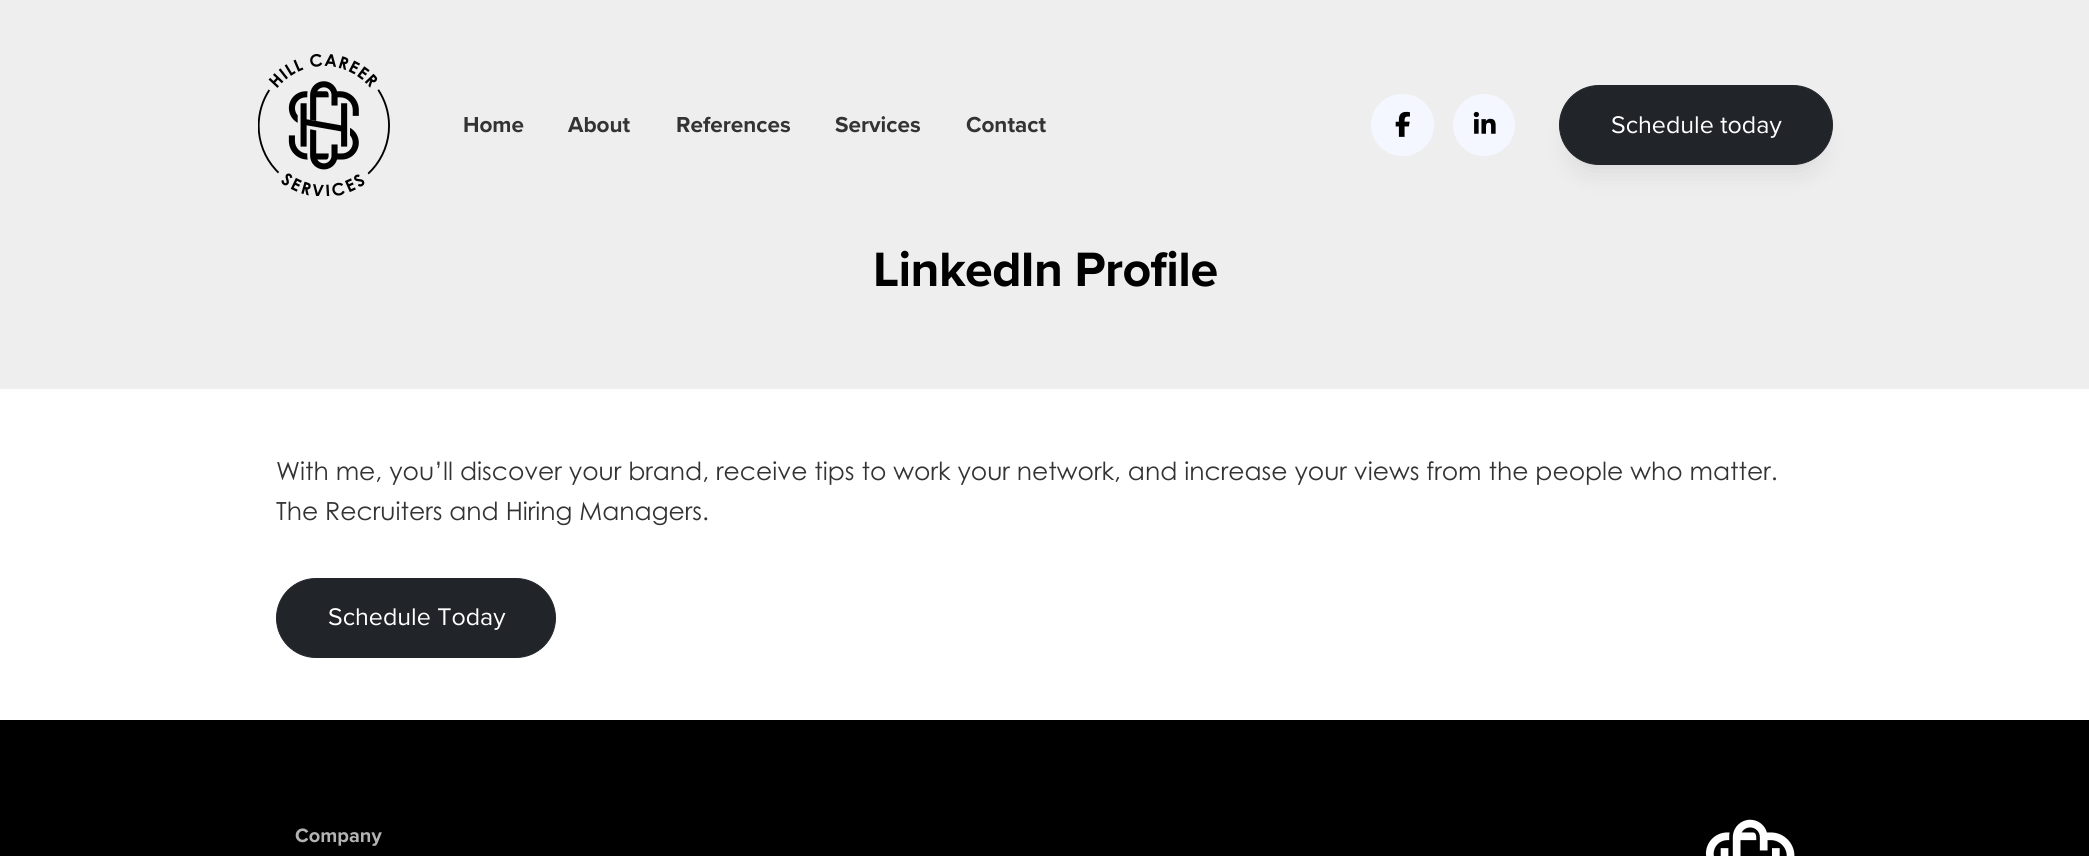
#include <cairo.h>
#include <math.h>
#include <stddef.h>


static void set_color(cairo_t *cr, unsigned color) {
    cairo_set_source_rgb(cr, (color >> 16) / 255.0, (color >> 8 & 255) / 255.0, (color & 255) / 255.0);
}

static void draw_text(cairo_t *cr, double x, double y, const char *s, const char *family, double size, int italic, int bold, unsigned color) {
    cairo_select_font_face(cr, family, italic ? CAIRO_FONT_SLANT_ITALIC : CAIRO_FONT_SLANT_NORMAL,
        bold ? CAIRO_FONT_WEIGHT_BOLD : CAIRO_FONT_WEIGHT_NORMAL);
    cairo_set_font_size(cr, size);
    set_color(cr, color);
    cairo_move_to(cr, x, y);
    cairo_show_text(cr, s);
}

static void draw_spaced(cairo_t *cr, double x, double y, const char *s, double letter, double word) {
    cairo_move_to(cr, x, y);
    while (*s) {
        char ch[5] = {0};
        int n = 0;
        do ch[n++] = *s++; while ((*s & 0xC0) == 0x80);
        cairo_show_text(cr, ch);
        cairo_rel_move_to(cr, letter + word * (*ch == ' '), 0);
    }
}

static void fill_rect(cairo_t *cr, double x, double y, double w, double h, unsigned color) {
    set_color(cr, color);
    cairo_rectangle(cr, x, y, w, h);
    cairo_fill(cr);
}

static void rounded_rect(cairo_t *cr, double x, double y, double w, double h, double r) {
    cairo_new_sub_path(cr);
    cairo_arc(cr, x + w - r, y + h - r, r, 0, M_PI / 2);
    cairo_arc(cr, x + r, y + h - r, r, M_PI / 2, M_PI);
    cairo_arc(cr, x + r, y + r, r, M_PI, 1.5 * M_PI);
    cairo_arc(cr, x + w - r, y + r, r, 1.5 * M_PI, 2 * M_PI);
    cairo_close_path(cr);
}

static void draw_shadow(cairo_t *cr, double x, double y, double w, double h, double r, double blur, double alpha) {
    cairo_push_group_with_content(cr, CAIRO_CONTENT_ALPHA);
    cairo_set_operator(cr, CAIRO_OPERATOR_SOURCE);
    for (int i = 15; i >= -15 && fmin(w, h) + blur * i / 3 > 0; i -= 2) {
        double e = blur * i / 6;
        cairo_set_source_rgba(cr, 0, 0, 0, alpha * erfc((i - 1) / 8.5) / 2);
        rounded_rect(cr, x - e, y - e, w + 2 * e, h + 2 * e, fmax(0, fmin(r + e + blur * .6, fmin(w, h) / 2 + e)));
        cairo_fill(cr);
    }
    cairo_pattern_t *soft = cairo_pop_group(cr);
    cairo_mask(cr, soft);
    cairo_pattern_destroy(soft);
}

static void draw_image(cairo_t *cr, const char *path, double x, double y, double w, double h) {
    cairo_surface_t *image = cairo_image_surface_create_from_png(path);
    cairo_save(cr);
    cairo_set_source_surface(cr, image, x, y);
    cairo_rectangle(cr, x, y, w, h);
    cairo_fill(cr);
    cairo_restore(cr);
    cairo_surface_destroy(image);
}

int main(void) {
    cairo_surface_t *surface = cairo_image_surface_create(CAIRO_FORMAT_RGB24, 2089, 856);
    cairo_t *cr = cairo_create(surface);
    cairo_font_options_t *options = cairo_font_options_create();
    cairo_font_options_set_hint_metrics(options, CAIRO_HINT_METRICS_OFF);
    cairo_font_options_set_hint_style(options, CAIRO_HINT_STYLE_NONE);
    cairo_set_font_options(cr, options);
    cairo_set_miter_limit(cr, 4);
    set_color(cr, 0xFFFFFF);
    cairo_paint(cr);
    fill_rect(cr, 0, 0, 2089, 389, 0xEEEEEE);
    draw_image(cr, "assets/img1.png", 258, 54, 132, 142);
    draw_text(cr, 463, 132, "Home", "Proxima Nova", 22.5, 0, 1, 0x333333);
    draw_text(cr, 568, 132, "About", "Proxima Nova", 22.5, 0, 1, 0x333333);
    draw_text(cr, 676, 132, "References", "Proxima Nova", 22.5, 0, 1, 0x333333);
    draw_text(cr, 835, 132, "Services", "Proxima Nova", 22.5, 0, 1, 0x333333);
    draw_text(cr, 966, 132, "Contact", "Proxima Nova", 22.5, 0, 1, 0x333333);
    set_color(cr, 0xF4F7FF);
    rounded_rect(cr, 1371, 94, 63, 62, 31);
    cairo_fill(cr);
    draw_image(cr, "assets/img2.png", 1395, 111, 15, 26);
    cairo_arc(cr, 1484, 125, 31, 0, 2 * M_PI);
    cairo_fill(cr);
    draw_image(cr, "assets/img3.png", 1473, 111, 23, 23);
    set_color(cr, 0x000000);
    draw_shadow(cr, 1571, 116, 249, 55, 27.5, 12.5, 0.1);
    set_color(cr, 0x212529);
    rounded_rect(cr, 1559.5, 85.5, 273, 79, 39.5);
    cairo_fill_preserve(cr);
    cairo_set_line_width(cr, 1);
    cairo_stroke(cr);
    draw_text(cr, 1611, 133, "Schedule today", "Proxima Nova", 25, 0, 0, 0xFFFFFF);
    cairo_select_font_face(cr, "Proxima Nova", CAIRO_FONT_SLANT_NORMAL, CAIRO_FONT_WEIGHT_BOLD);
    cairo_set_font_size(cr, 50);
    set_color(cr, 0x000000);
    draw_spaced(cr, 873, 286, "LinkedIn Profile", -0.6, 0);
    draw_text(cr, 276, 480, "With me, you’ll discover your brand, receive tips to work your network, and increase your views from the people who matter.", "Century Gothic", 25, 0, 0, 0x333333);
    draw_text(cr, 276, 520, "The Recruiters and Hiring Managers.", "Century Gothic", 25, 0, 0, 0x333333);
    set_color(cr, 0x212529);
    rounded_rect(cr, 276.5, 578.5, 279, 79, 39.5);
    cairo_fill_preserve(cr);
    cairo_stroke(cr);
    draw_text(cr, 328, 625, "Schedule Today", "Proxima Nova", 25, 0, 0, 0xFFFFFF);
    fill_rect(cr, 0, 720, 2089, 136, 0x000000);
    draw_text(cr, 295, 842, "Company", "Proxima Nova", 20, 0, 1, 0xB3B3B3);
    draw_image(cr, "assets/img4.png", 1705, 819, 90, 37);
    cairo_surface_write_to_png(surface, "output.png");
    cairo_font_options_destroy(options);
    cairo_destroy(cr);
    cairo_surface_destroy(surface);
    return 0;
}
